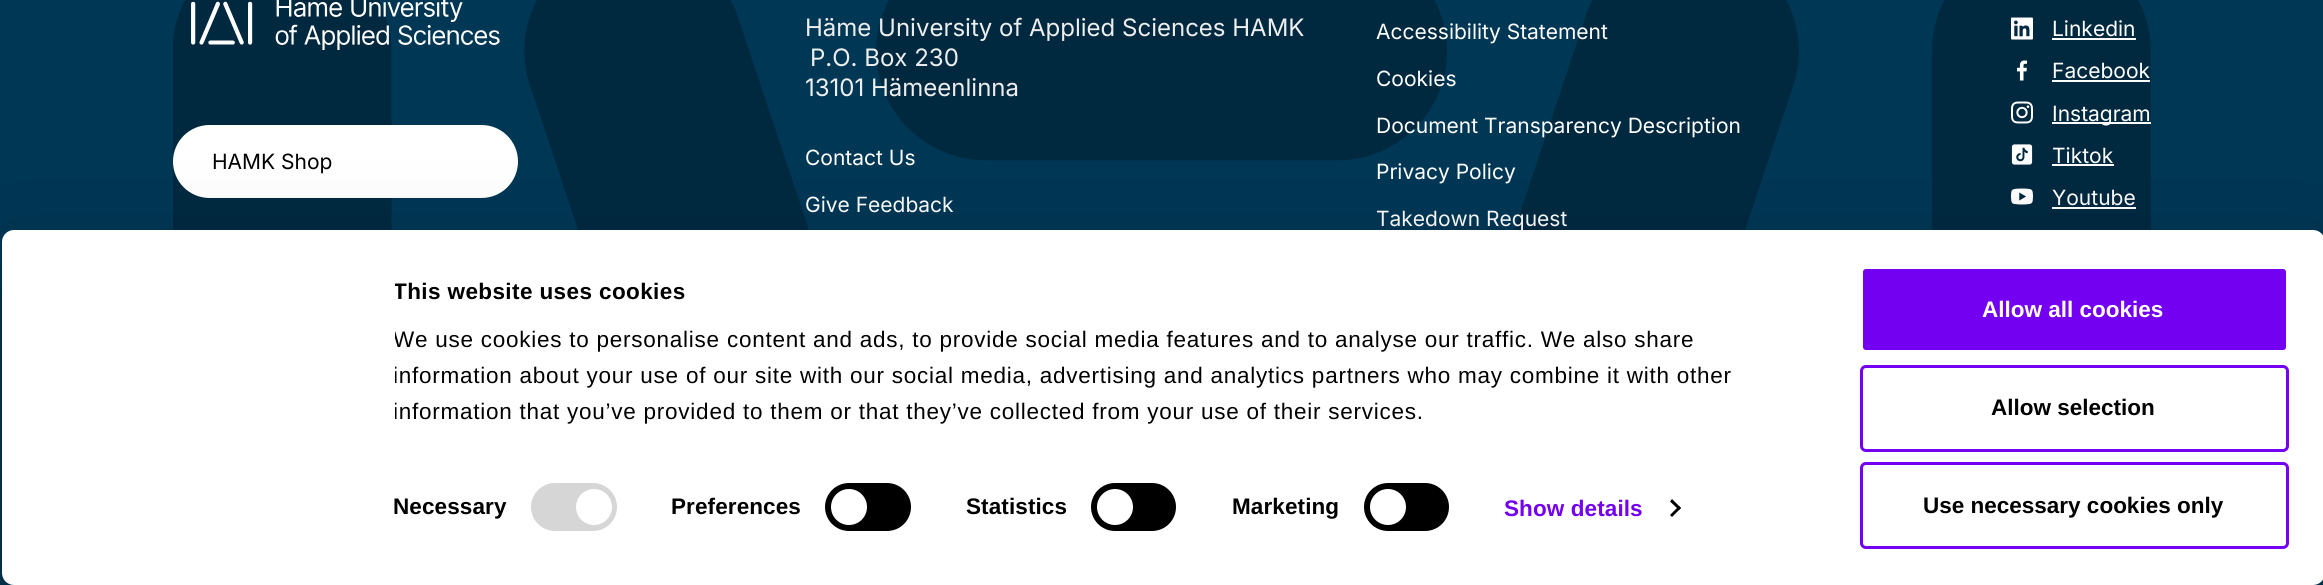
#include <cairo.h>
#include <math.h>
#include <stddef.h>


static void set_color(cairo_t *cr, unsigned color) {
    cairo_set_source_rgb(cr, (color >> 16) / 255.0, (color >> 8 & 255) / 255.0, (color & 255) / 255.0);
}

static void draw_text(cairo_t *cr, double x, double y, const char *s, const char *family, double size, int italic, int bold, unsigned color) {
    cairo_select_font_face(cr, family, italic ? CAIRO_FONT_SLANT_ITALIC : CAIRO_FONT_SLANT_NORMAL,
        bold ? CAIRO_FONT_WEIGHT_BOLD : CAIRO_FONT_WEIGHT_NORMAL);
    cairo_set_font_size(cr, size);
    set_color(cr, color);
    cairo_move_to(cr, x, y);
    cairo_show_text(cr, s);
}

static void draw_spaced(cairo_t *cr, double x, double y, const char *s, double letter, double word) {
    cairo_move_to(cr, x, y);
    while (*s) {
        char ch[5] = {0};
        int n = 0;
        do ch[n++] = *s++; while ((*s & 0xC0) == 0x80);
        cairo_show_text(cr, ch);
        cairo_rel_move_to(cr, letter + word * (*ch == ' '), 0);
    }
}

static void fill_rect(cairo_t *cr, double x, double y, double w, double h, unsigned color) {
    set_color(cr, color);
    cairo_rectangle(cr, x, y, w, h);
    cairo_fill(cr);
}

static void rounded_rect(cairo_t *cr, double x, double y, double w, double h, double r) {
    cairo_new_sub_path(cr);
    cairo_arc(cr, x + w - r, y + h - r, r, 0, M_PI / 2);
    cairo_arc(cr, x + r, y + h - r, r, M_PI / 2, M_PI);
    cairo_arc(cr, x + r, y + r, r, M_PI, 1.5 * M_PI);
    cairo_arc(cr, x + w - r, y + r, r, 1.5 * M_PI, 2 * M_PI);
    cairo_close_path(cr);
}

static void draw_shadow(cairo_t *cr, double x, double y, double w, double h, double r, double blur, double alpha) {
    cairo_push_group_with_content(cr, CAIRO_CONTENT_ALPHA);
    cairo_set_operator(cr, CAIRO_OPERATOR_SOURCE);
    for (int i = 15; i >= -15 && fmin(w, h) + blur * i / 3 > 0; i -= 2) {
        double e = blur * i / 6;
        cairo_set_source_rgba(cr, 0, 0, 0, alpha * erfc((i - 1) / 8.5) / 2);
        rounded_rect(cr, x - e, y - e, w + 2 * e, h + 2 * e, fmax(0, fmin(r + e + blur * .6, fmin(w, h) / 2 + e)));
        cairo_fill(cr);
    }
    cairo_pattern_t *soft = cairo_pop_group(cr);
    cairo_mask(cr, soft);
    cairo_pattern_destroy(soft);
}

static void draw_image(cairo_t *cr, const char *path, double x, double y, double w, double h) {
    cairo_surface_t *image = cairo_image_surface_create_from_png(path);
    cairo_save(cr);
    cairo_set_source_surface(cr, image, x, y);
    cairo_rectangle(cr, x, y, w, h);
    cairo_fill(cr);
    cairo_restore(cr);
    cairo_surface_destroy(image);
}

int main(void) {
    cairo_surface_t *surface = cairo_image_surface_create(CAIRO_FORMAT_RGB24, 2323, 585);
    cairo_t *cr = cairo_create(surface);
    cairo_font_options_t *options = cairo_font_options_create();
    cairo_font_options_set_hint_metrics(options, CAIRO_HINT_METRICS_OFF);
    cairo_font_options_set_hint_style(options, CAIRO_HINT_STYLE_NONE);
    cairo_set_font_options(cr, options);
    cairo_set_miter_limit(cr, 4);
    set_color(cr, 0x003755);
    cairo_paint(cr);
    draw_image(cr, "assets/img1.png", 173, 0, 1978, 230);
    draw_image(cr, "assets/img2.png", 191, 0, 309, 50);
    set_color(cr, 0xFFFFFF);
    rounded_rect(cr, 173, 125, 345, 73, 36.5);
    cairo_fill(cr);
    draw_text(cr, 212, 169, "HAMK Shop", "Inter", 21, 0, 0, 0x000000);
    draw_text(cr, 805, 36, "Häme University of Applied Sciences HAMK", "Inter", 24, 0, 0, 0xEEEEEE);
    draw_text(cr, 810, 66, "P.O. Box 230", "Inter", 24, 0, 0, 0xEEEEEE);
    draw_text(cr, 805, 96, "13101 Hämeenlinna", "Inter", 24, 0, 0, 0xEEEEEE);
    draw_text(cr, 805, 165, "Contact Us", "Inter", 21, 0, 0, 0xFFFFFF);
    draw_text(cr, 805, 212, "Give Feedback", "Inter", 21, 0, 0, 0xFFFFFF);
    draw_text(cr, 1376, 39, "Accessibility Statement", "Inter", 21, 0, 0, 0xFFFFFF);
    draw_text(cr, 1376, 86, "Cookies", "Inter", 21, 0, 0, 0xFFFFFF);
    draw_text(cr, 1376, 133, "Document Transparency Description", "Inter", 21, 0, 0, 0xFFFFFF);
    draw_text(cr, 1376, 179, "Privacy Policy", "Inter", 21, 0, 0, 0xFFFFFF);
    draw_text(cr, 1376, 226, "Takedown Request", "Inter", 21, 0, 0, 0xFFFFFF);
    draw_image(cr, "assets/img3.png", 2011, 17, 22, 23);
    draw_text(cr, 2052, 36, "Linkedin", "Inter", 21, 0, 0, 0xFFFFFF);
    fill_rect(cr, 2052, 38, 84, 2, 0xFFFFFF);
    draw_image(cr, "assets/img4.png", 2017, 60, 10, 21);
    draw_text(cr, 2052, 78, "Facebook", "Inter", 21, 0, 0, 0xFFFFFF);
    fill_rect(cr, 2052, 80, 98, 2, 0xFFFFFF);
    draw_image(cr, "assets/img5.png", 2011, 101, 22, 23);
    fill_rect(cr, 2052, 122, 99, 2, 0xFFFFFF);
    draw_text(cr, 2052, 121, "Instagram", "Inter", 21, 0, 0, 0xFFFFFF);
    draw_image(cr, "assets/img6.png", 2011, 144, 22, 21);
    draw_text(cr, 2052, 163, "Tiktok", "Inter", 21, 0, 0, 0xFFFFFF);
    fill_rect(cr, 2052, 164, 62, 2, 0xFFFFFF);
    draw_image(cr, "assets/img7.png", 2011, 188, 22, 17);
    draw_text(cr, 2052, 205, "Youtube", "Inter", 21, 0, 0, 0xFFFFFF);
    fill_rect(cr, 2052, 207, 84, 2, 0xFFFFFF);
    cairo_save(cr);
    cairo_set_fill_rule(cr, CAIRO_FILL_RULE_EVEN_ODD);
    cairo_new_path(cr);
    cairo_move_to(cr, 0, 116);
    cairo_line_to(cr, 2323, 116);
    cairo_line_to(cr, 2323, 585);
    cairo_line_to(cr, 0, 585);
    cairo_close_path(cr);
    cairo_move_to(cr, 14, 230);
    cairo_line_to(cr, 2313, 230);
    cairo_curve_to(cr, 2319.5, 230, 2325, 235.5, 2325, 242);
    cairo_line_to(cr, 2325, 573);
    cairo_curve_to(cr, 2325, 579.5, 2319.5, 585, 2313, 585);
    cairo_line_to(cr, 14, 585);
    cairo_curve_to(cr, 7.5, 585, 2, 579.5, 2, 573);
    cairo_line_to(cr, 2, 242);
    cairo_curve_to(cr, 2, 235.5, 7.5, 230, 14, 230);
    cairo_close_path(cr);
    cairo_clip(cr);
    set_color(cr, 0x000000);
    draw_shadow(cr, 2, 275, 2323, 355, 12, 52.5, 0.3);
    cairo_restore(cr);
    rounded_rect(cr, 2, 230, 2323, 355, 12);
    cairo_fill(cr);
    cairo_save(cr);
    cairo_rectangle(cr, 395, 275, 1422, 154);
    cairo_clip(cr);
    cairo_select_font_face(cr, "Liberation Sans", CAIRO_FONT_SLANT_NORMAL, CAIRO_FONT_WEIGHT_BOLD);
    cairo_set_font_size(cr, 22.5);
    set_color(cr, 0x000000);
    draw_spaced(cr, 393, 299, "This website uses cookies", 0.4, 0);
    cairo_select_font_face(cr, "Liberation Sans", CAIRO_FONT_SLANT_NORMAL, CAIRO_FONT_WEIGHT_NORMAL);
    draw_spaced(cr, 393, 347, "We use cookies to personalise content and ads, to provide social media features and to analyse our traffic. We also share", 0.75, 0);
    draw_spaced(cr, 393, 383, "information about your use of our site with our social media, advertising and analytics partners who may combine it with other", 0.75, 0);
    draw_spaced(cr, 393, 419, "information that you’ve provided to them or that they’ve collected from your use of their services.", 0.75, 0);
    cairo_restore(cr);
    cairo_select_font_face(cr, "Liberation Sans", CAIRO_FONT_SLANT_NORMAL, CAIRO_FONT_WEIGHT_BOLD);
    cairo_set_font_size(cr, 22.5);
    set_color(cr, 0x000000);
    draw_spaced(cr, 393, 514, "Necessary", 0.1, 0);
    set_color(cr, 0xD6D6D6);
    rounded_rect(cr, 531, 483, 86, 48, 24);
    cairo_fill(cr);
    set_color(cr, 0xFFFFFF);
    cairo_arc(cr, 594, 507, 18, 0, 2 * M_PI);
    cairo_fill(cr);
    set_color(cr, 0x000000);
    draw_spaced(cr, 671, 514, "Preferences", 0.1, 0);
    rounded_rect(cr, 825, 483, 86, 48, 24);
    cairo_fill(cr);
    set_color(cr, 0xFFFFFF);
    cairo_arc(cr, 849, 507, 18, 0, 2 * M_PI);
    cairo_fill(cr);
    set_color(cr, 0x000000);
    draw_spaced(cr, 966, 514, "Statistics", 0.1, 0);
    rounded_rect(cr, 1091, 483, 85, 48, 24);
    cairo_fill(cr);
    set_color(cr, 0xFFFFFF);
    cairo_arc(cr, 1115, 507, 18, 0, 2 * M_PI);
    cairo_fill(cr);
    set_color(cr, 0x000000);
    draw_spaced(cr, 1232, 514, "Marketing", 0.1, 0);
    rounded_rect(cr, 1364, 483, 85, 48, 24);
    cairo_fill(cr);
    set_color(cr, 0xFFFFFF);
    cairo_arc(cr, 1388, 507, 18, 0, 2 * M_PI);
    cairo_fill(cr);
    set_color(cr, 0x7300F0);
    draw_spaced(cr, 1504, 516, "Show details", 0.1, 0);
    set_color(cr, 0x000000);
    cairo_new_path(cr);
    cairo_move_to(cr, 1672, 499);
    cairo_line_to(cr, 1681, 508);
    cairo_line_to(cr, 1679, 510);
    cairo_line_to(cr, 1670, 501.5);
    cairo_close_path(cr);
    cairo_fill(cr);
    cairo_new_path(cr);
    cairo_move_to(cr, 1679, 506);
    cairo_line_to(cr, 1681, 508);
    cairo_line_to(cr, 1672, 517);
    cairo_line_to(cr, 1670, 515);
    cairo_close_path(cr);
    cairo_fill(cr);
    set_color(cr, 0x7300F0);
    rounded_rect(cr, 1861.5, 267.5, 426, 84, 4.5);
    cairo_fill_preserve(cr);
    set_color(cr, 0xFFFFFF);
    cairo_set_line_width(cr, 3);
    cairo_stroke(cr);
    draw_text(cr, 1982, 317, "Allow all cookies", "Liberation Sans", 22.5, 0, 1, 0xFFFFFF);
    rounded_rect(cr, 1861.5, 366.5, 426, 84, 4.5);
    set_color(cr, 0x7300F0);
    cairo_stroke(cr);
    draw_text(cr, 1991, 415, "Allow selection", "Liberation Sans", 22.5, 0, 1, 0x000000);
    rounded_rect(cr, 1861.5, 463.5, 426, 84, 4.5);
    set_color(cr, 0x7300F0);
    cairo_stroke(cr);
    draw_text(cr, 1923, 513, "Use necessary cookies only", "Liberation Sans", 22.5, 0, 1, 0x000000);
    cairo_surface_write_to_png(surface, "output.png");
    cairo_font_options_destroy(options);
    cairo_destroy(cr);
    cairo_surface_destroy(surface);
    return 0;
}
